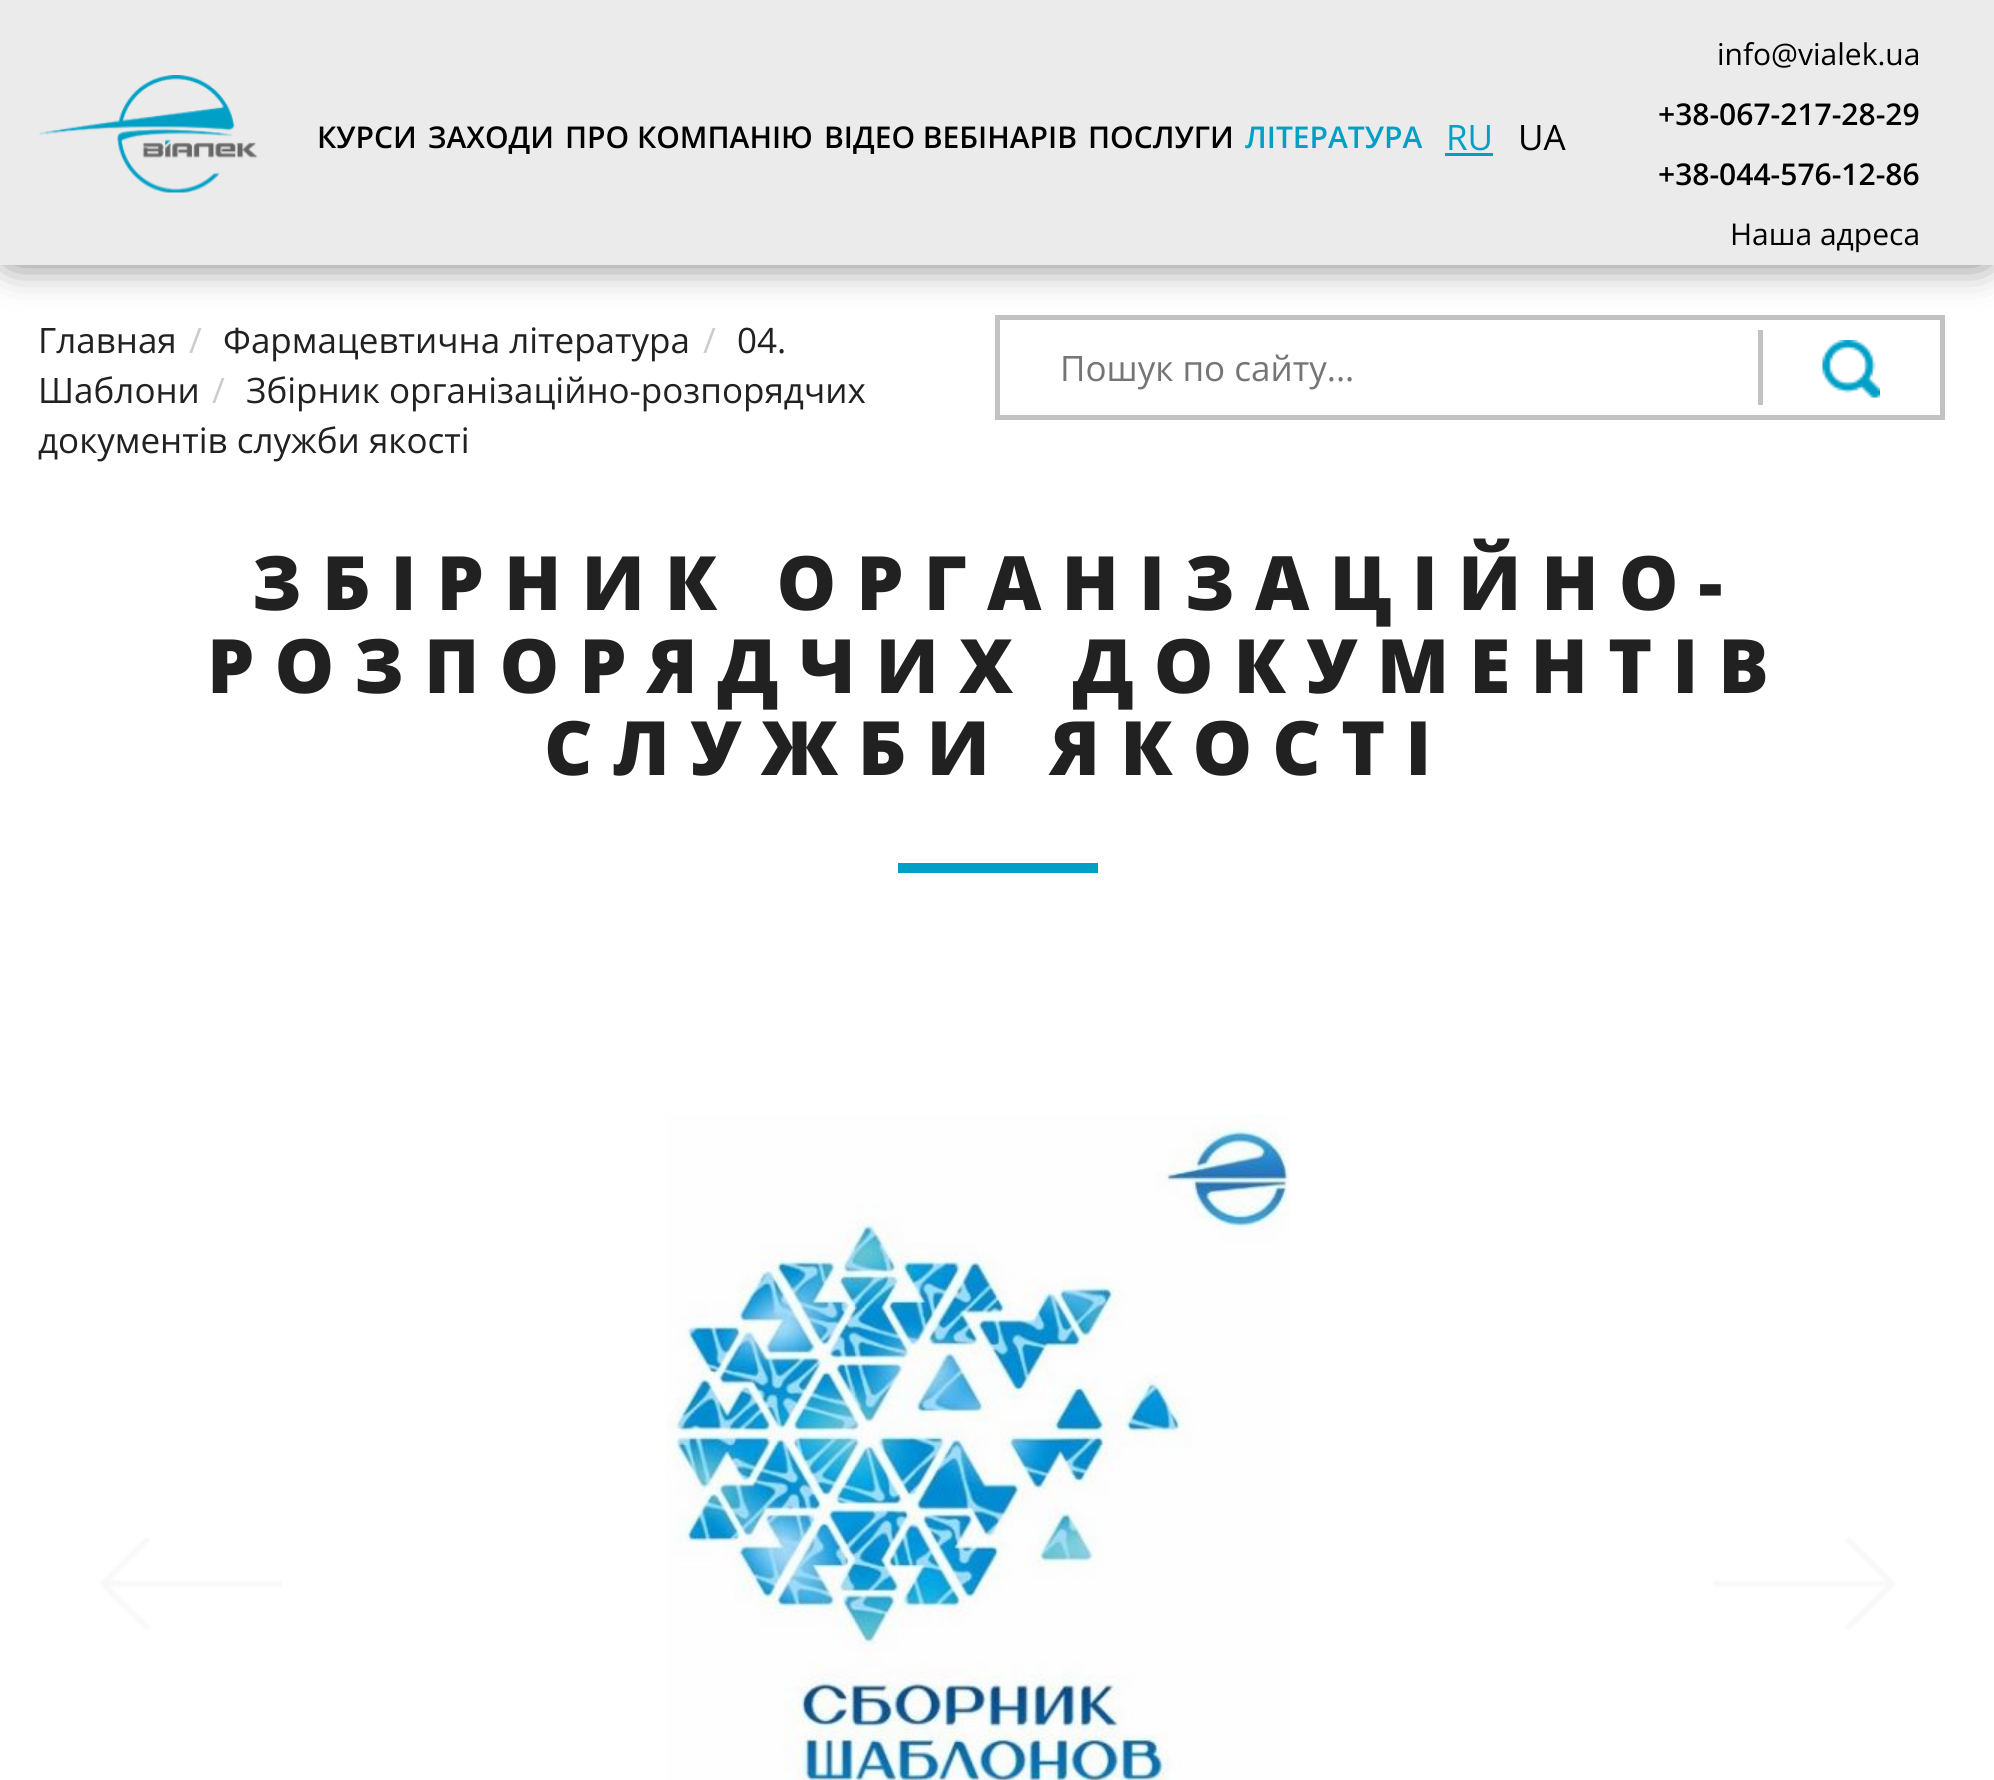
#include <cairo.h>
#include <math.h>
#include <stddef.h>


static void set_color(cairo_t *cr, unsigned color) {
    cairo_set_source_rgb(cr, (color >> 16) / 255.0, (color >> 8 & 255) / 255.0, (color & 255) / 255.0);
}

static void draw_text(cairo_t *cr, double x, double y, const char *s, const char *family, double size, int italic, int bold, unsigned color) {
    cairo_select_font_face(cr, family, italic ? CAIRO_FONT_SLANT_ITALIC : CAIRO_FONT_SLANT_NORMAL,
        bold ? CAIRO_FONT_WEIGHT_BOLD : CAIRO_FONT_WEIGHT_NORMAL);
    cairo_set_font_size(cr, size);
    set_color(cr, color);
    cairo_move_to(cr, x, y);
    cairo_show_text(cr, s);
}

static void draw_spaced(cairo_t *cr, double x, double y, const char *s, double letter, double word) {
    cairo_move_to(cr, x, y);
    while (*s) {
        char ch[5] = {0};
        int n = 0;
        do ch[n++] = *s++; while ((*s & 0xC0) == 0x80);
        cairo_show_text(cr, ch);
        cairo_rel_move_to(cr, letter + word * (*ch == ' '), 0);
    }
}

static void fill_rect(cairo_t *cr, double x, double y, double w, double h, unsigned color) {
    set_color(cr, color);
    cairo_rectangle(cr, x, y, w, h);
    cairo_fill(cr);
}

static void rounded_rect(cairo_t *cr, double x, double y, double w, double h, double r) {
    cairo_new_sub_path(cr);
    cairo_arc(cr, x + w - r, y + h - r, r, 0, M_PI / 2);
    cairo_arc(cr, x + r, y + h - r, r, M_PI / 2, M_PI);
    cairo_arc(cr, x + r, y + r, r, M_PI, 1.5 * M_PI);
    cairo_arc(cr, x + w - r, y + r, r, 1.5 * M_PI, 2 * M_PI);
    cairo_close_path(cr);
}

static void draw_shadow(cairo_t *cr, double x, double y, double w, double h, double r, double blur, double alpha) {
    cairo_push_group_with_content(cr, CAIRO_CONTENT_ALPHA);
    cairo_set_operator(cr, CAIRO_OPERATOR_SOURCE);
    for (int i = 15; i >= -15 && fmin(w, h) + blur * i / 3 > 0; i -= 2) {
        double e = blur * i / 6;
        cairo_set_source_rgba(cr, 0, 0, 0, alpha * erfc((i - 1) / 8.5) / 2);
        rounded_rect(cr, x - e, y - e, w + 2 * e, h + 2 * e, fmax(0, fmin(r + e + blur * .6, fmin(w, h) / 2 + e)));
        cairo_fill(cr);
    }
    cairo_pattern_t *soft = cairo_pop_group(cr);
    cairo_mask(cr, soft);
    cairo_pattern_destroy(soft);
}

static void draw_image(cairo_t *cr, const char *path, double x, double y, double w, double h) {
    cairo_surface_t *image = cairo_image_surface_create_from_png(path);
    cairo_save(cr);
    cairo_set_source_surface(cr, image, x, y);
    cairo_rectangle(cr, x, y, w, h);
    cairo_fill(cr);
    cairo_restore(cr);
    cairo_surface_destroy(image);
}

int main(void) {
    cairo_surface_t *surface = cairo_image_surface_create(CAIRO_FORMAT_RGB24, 1994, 1780);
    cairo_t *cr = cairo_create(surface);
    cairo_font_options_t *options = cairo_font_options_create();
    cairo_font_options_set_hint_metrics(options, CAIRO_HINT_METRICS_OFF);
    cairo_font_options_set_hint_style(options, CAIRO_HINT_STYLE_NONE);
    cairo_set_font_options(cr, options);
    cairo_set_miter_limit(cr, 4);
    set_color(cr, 0xFFFFFF);
    cairo_paint(cr);
    cairo_rectangle(cr, 997.5, 317.5, 945, 100);
    set_color(cr, 0xC2C2C2);
    cairo_set_line_width(cr, 5);
    cairo_stroke(cr);
    set_color(cr, 0x000000);
    draw_shadow(cr, 0, 0, 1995, 265, 15, 19, 0.5);
    fill_rect(cr, 0, 0, 1994, 265, 0xEBEBEB);
    draw_image(cr, "assets/img1.png", 39, 75, 219, 118);
    draw_text(cr, 317, 148, "КУРСИ", "Open Sans SemiBold", 30, 0, 0, 0x000000);
    draw_text(cr, 428, 148, "ЗАХОДИ", "Open Sans SemiBold", 30, 0, 0, 0x000000);
    draw_text(cr, 565, 148, "ПРО КОМПАНІЮ", "Open Sans SemiBold", 30, 0, 0, 0x000000);
    draw_text(cr, 824, 148, "ВІДЕО ВЕБІНАРІВ", "Open Sans SemiBold", 30, 0, 0, 0x000000);
    draw_text(cr, 1088, 148, "ПОСЛУГИ", "Open Sans SemiBold", 30, 0, 0, 0x000000);
    draw_text(cr, 1245, 148, "ЛІТЕРАТУРА", "Open Sans SemiBold", 30, 0, 0, 0x00A0C6);
    draw_text(cr, 1446, 150, "RU", "Open Sans", 35, 0, 0, 0x00A0C6);
    fill_rect(cr, 1445, 153, 48, 3, 0x00A0C6);
    draw_text(cr, 1518, 150, "UA", "Open Sans", 35, 0, 0, 0x000000);
    draw_text(cr, 1717, 65, "info@vialek.ua", "Open Sans", 30, 0, 0, 0x000000);
    draw_text(cr, 1658, 125, "+38-067-217-28-29", "Open Sans SemiBold", 30, 0, 0, 0x000000);
    draw_text(cr, 1658, 185, "+38-044-576-12-86", "Open Sans SemiBold", 30, 0, 0, 0x000000);
    draw_text(cr, 1730, 245, "Наша адреса", "Open Sans", 30, 0, 0, 0x000000);
    draw_text(cr, 38, 353, "Главная", "Open Sans", 35, 0, 0, 0x212121);
    draw_text(cr, 189, 353, "/", "Open Sans", 35, 0, 0, 0xCCCCCC);
    draw_text(cr, 223, 353, "Фармацевтична література", "Open Sans", 35, 0, 0, 0x212121);
    draw_text(cr, 703, 353, "/", "Open Sans", 35, 0, 0, 0xCCCCCC);
    draw_text(cr, 737, 353, "04.", "Open Sans", 35, 0, 0, 0x212121);
    draw_text(cr, 38, 403, "Шаблони", "Open Sans", 35, 0, 0, 0x212121);
    draw_text(cr, 212, 403, "/", "Open Sans", 35, 0, 0, 0xCCCCCC);
    draw_text(cr, 246, 403, "Збірник організаційно-розпорядчих", "Open Sans", 35, 0, 0, 0x212121);
    draw_text(cr, 38, 453, "документів служби якості", "Open Sans", 35, 0, 0, 0x212121);
    draw_text(cr, 1060, 381, "Пошук по сайту...", "Open Sans", 35, 0, 0, 0x757575);
    draw_image(cr, "assets/img2.png", 1822, 340, 58, 58);
    fill_rect(cr, 1758, 330, 5, 75, 0xC2C2C2);
    cairo_select_font_face(cr, "Open Sans ExtraBold", CAIRO_FONT_SLANT_NORMAL, CAIRO_FONT_WEIGHT_NORMAL);
    cairo_set_font_size(cr, 75);
    set_color(cr, 0x212121);
    draw_spaced(cr, 252, 610, "ЗБІРНИК ОРГАНІЗАЦІЙНО-", 20, 0);
    draw_spaced(cr, 207, 693, "РОЗПОРЯДЧИХ ДОКУМЕНТІВ", 20, 0);
    draw_spaced(cr, 544, 775, "СЛУЖБИ ЯКОСТІ", 20, 0);
    fill_rect(cr, 898, 863, 200, 10, 0x00A0C6);
    draw_image(cr, "assets/img3.png", 100, 1538, 182, 92);
    draw_image(cr, "assets/img4.png", 666, 1114, 624, 666);
    draw_image(cr, "assets/img5.png", 1713, 1538, 182, 92);
    cairo_surface_write_to_png(surface, "output.png");
    cairo_font_options_destroy(options);
    cairo_destroy(cr);
    cairo_surface_destroy(surface);
    return 0;
}
